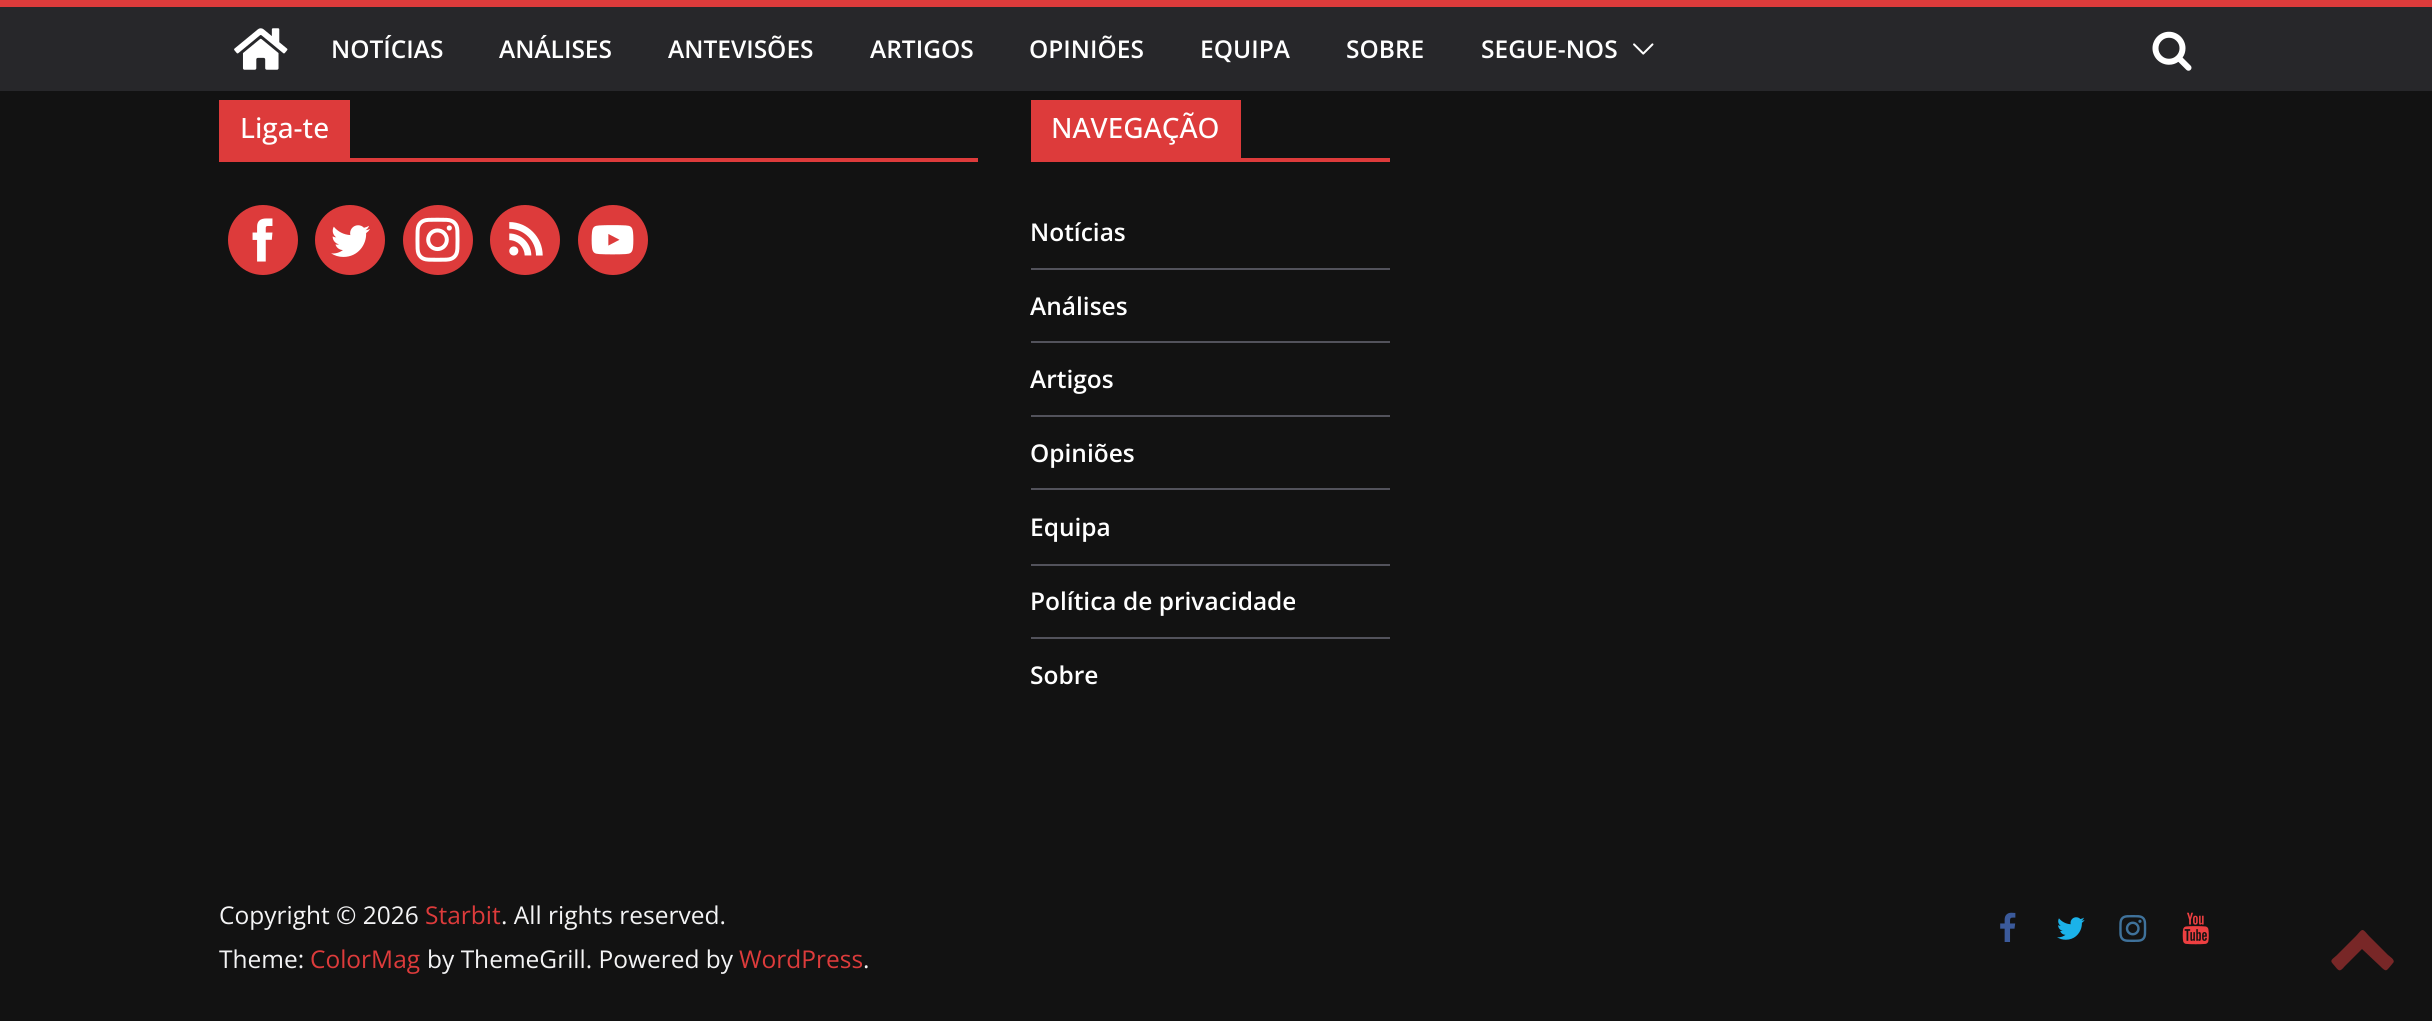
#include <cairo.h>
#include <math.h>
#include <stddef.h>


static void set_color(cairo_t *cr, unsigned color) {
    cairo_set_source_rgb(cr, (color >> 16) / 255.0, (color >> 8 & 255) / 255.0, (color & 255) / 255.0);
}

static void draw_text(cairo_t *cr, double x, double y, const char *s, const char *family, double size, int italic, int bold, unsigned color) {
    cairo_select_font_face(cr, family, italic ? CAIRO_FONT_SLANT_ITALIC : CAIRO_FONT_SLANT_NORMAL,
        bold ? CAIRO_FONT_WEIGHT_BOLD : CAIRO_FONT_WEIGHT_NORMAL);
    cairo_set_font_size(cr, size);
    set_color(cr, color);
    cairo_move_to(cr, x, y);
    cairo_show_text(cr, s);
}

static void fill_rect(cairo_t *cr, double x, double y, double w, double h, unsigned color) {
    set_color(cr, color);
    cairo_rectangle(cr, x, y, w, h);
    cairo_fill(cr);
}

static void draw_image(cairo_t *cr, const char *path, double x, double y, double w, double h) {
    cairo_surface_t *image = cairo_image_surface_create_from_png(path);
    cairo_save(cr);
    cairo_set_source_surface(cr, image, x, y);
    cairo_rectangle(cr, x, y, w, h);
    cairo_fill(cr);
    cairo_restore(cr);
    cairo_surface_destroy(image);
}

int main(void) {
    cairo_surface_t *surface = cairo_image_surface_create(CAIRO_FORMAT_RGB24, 2432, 1021);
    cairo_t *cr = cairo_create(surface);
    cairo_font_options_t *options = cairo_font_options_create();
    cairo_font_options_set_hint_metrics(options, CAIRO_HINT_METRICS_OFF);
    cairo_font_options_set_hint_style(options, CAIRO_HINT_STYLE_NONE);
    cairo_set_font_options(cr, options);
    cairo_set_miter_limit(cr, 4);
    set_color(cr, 0x121212);
    cairo_paint(cr);
    fill_rect(cr, 0, 7, 2432, 84, 0x27272A);
    fill_rect(cr, 0, 0, 2432, 7, 0xDD3B3B);
    draw_image(cr, "assets/img1.png", 234, 28, 54, 42);
    draw_text(cr, 331, 58, "NOTÍCIAS", "Open Sans SemiBold", 24.5, 0, 0, 0xFFFFFF);
    draw_text(cr, 499, 58, "ANÁLISES", "Open Sans SemiBold", 24.5, 0, 0, 0xFFFFFF);
    draw_text(cr, 668, 58, "ANTEVISÕES", "Open Sans SemiBold", 24.5, 0, 0, 0xFFFFFF);
    draw_text(cr, 870, 58, "ARTIGOS", "Open Sans SemiBold", 24.5, 0, 0, 0xFFFFFF);
    draw_text(cr, 1029, 58, "OPINIÕES", "Open Sans SemiBold", 24.5, 0, 0, 0xFFFFFF);
    draw_text(cr, 1200, 58, "EQUIPA", "Open Sans SemiBold", 24.5, 0, 0, 0xFFFFFF);
    draw_text(cr, 1346, 58, "SOBRE", "Open Sans SemiBold", 24.5, 0, 0, 0xFFFFFF);
    draw_text(cr, 1481, 58, "SEGUE-NOS", "Open Sans SemiBold", 24.5, 0, 0, 0xFFFFFF);
    draw_image(cr, "assets/img2.png", 1633, 43, 21, 12);
    draw_image(cr, "assets/img3.png", 2152, 31, 40, 40);
    fill_rect(cr, 219, 158, 759, 4, 0xDD3B3B);
    fill_rect(cr, 219, 100, 131, 58, 0xDD3B3B);
    draw_text(cr, 240, 138, "Liga-te", "Open Sans Medium", 28, 0, 0, 0xFFFFFF);
    set_color(cr, 0xDD3B3B);
    cairo_new_path(cr);
    cairo_arc(cr, 263, 240, 35, 0, 2 * M_PI);
    cairo_fill(cr);
    draw_image(cr, "assets/img4.png", 252, 218, 21, 44);
    cairo_arc(cr, 350, 240, 35, 0, 2 * M_PI);
    cairo_fill(cr);
    draw_image(cr, "assets/img5.png", 331, 225, 39, 32);
    cairo_arc(cr, 438, 240, 35, 0, 2 * M_PI);
    cairo_fill(cr);
    draw_image(cr, "assets/img6.png", 415, 217, 45, 45);
    cairo_arc(cr, 525, 240, 35, 0, 2 * M_PI);
    cairo_fill(cr);
    draw_image(cr, "assets/img7.png", 509, 222, 34, 34);
    cairo_arc(cr, 613, 240, 35, 0, 2 * M_PI);
    cairo_fill(cr);
    draw_image(cr, "assets/img8.png", 591, 225, 43, 30);
    fill_rect(cr, 1031, 158, 359, 4, 0xDD3B3B);
    fill_rect(cr, 1031, 100, 210, 58, 0xDD3B3B);
    draw_text(cr, 1051, 138, "NAVEGAÇÃO", "Open Sans Medium", 28, 0, 0, 0xFFFFFF);
    fill_rect(cr, 1031, 268, 359, 2, 0x52525B);
    draw_text(cr, 1030, 241, "Notícias", "Open Sans SemiBold", 24.5, 0, 0, 0xFFFFFF);
    fill_rect(cr, 1031, 341, 359, 2, 0x52525B);
    draw_text(cr, 1030, 315, "Análises", "Open Sans SemiBold", 24.5, 0, 0, 0xFFFFFF);
    fill_rect(cr, 1031, 415, 359, 2, 0x52525B);
    draw_text(cr, 1030, 388, "Artigos", "Open Sans SemiBold", 24.5, 0, 0, 0xFFFFFF);
    fill_rect(cr, 1031, 488, 359, 2, 0x52525B);
    draw_text(cr, 1030, 462, "Opiniões", "Open Sans SemiBold", 24.5, 0, 0, 0xFFFFFF);
    fill_rect(cr, 1031, 564, 359, 2, 0x52525B);
    draw_text(cr, 1030, 536, "Equipa", "Open Sans SemiBold", 24.5, 0, 0, 0xFFFFFF);
    fill_rect(cr, 1031, 637, 359, 2, 0x52525B);
    draw_text(cr, 1030, 610, "Política de privacidade", "Open Sans SemiBold", 24.5, 0, 0, 0xFFFFFF);
    draw_text(cr, 1030, 684, "Sobre", "Open Sans SemiBold", 24.5, 0, 0, 0xFFFFFF);
    draw_text(cr, 219, 924, "Copyright © 2026", "Open Sans", 24.5, 0, 0, 0xF4F4F5);
    draw_text(cr, 425, 924, "Starbit", "Open Sans", 24.5, 0, 0, 0xDD3B3B);
    draw_text(cr, 501, 924, ". All rights reserved.", "Open Sans", 24.5, 0, 0, 0xF4F4F5);
    draw_text(cr, 219, 968, "Theme:", "Open Sans", 24.5, 0, 0, 0xF4F4F5);
    draw_text(cr, 310, 968, "ColorMag", "Open Sans", 24.5, 0, 0, 0xDD3B3B);
    draw_text(cr, 427, 968, "by ThemeGrill. Powered by", "Open Sans", 24.5, 0, 0, 0xF4F4F5);
    draw_text(cr, 739, 968, "WordPress", "Open Sans", 24.5, 0, 0, 0xDD3B3B);
    draw_text(cr, 863, 968, ".", "Open Sans", 24.5, 0, 0, 0xF4F4F5);
    draw_image(cr, "assets/img9.png", 2000, 912, 16, 30);
    draw_image(cr, "assets/img10.png", 2057, 917, 28, 23);
    draw_image(cr, "assets/img11.png", 2119, 915, 28, 27);
    draw_image(cr, "assets/img12.png", 2182, 912, 27, 33);
    set_color(cr, 0x782727);
    cairo_new_path(cr);
    cairo_move_to(cr, 2393, 963);
    cairo_curve_to(cr, 2386, 971, 2387, 973, 2380, 966);
    cairo_line_to(cr, 2362, 949);
    cairo_line_to(cr, 2345, 966);
    cairo_curve_to(cr, 2339, 973, 2339, 971, 2333, 964);
    cairo_curve_to(cr, 2329, 960, 2333, 959, 2337, 955);
    cairo_line_to(cr, 2356, 936);
    cairo_curve_to(cr, 2363, 928, 2362, 928, 2369, 936);
    cairo_line_to(cr, 2388, 955);
    cairo_curve_to(cr, 2389, 956, 2396, 960, 2393, 963);
    cairo_close_path(cr);
    cairo_fill(cr);
    cairo_surface_write_to_png(surface, "output.png");
    cairo_font_options_destroy(options);
    cairo_destroy(cr);
    cairo_surface_destroy(surface);
    return 0;
}
